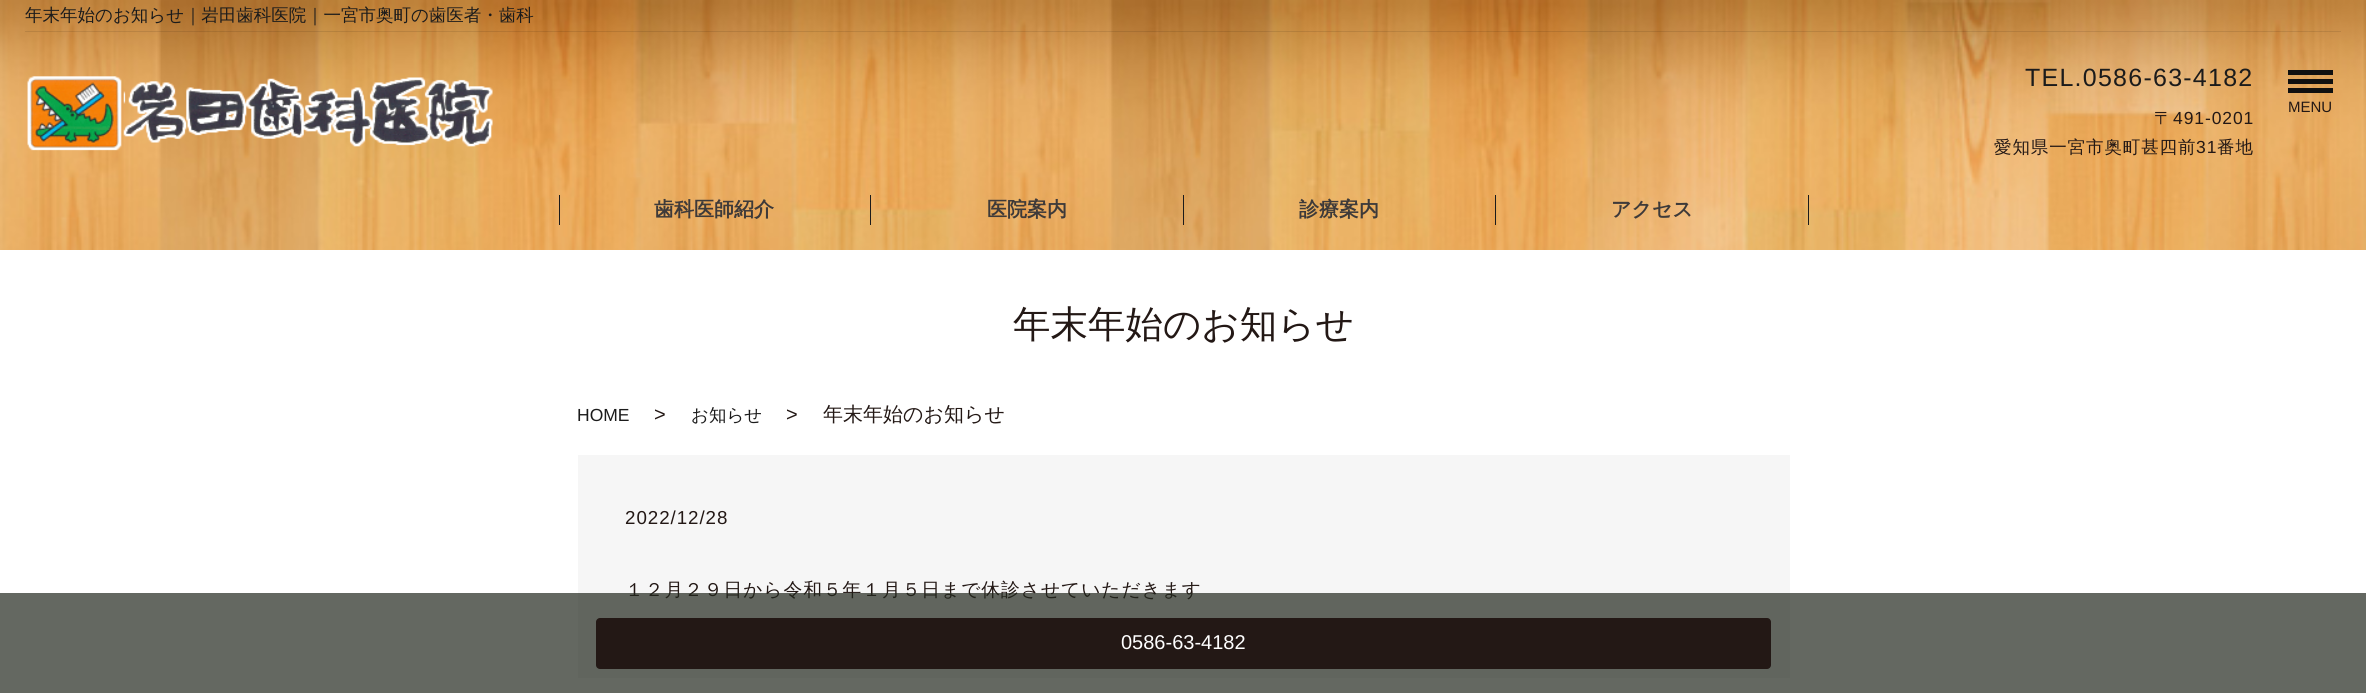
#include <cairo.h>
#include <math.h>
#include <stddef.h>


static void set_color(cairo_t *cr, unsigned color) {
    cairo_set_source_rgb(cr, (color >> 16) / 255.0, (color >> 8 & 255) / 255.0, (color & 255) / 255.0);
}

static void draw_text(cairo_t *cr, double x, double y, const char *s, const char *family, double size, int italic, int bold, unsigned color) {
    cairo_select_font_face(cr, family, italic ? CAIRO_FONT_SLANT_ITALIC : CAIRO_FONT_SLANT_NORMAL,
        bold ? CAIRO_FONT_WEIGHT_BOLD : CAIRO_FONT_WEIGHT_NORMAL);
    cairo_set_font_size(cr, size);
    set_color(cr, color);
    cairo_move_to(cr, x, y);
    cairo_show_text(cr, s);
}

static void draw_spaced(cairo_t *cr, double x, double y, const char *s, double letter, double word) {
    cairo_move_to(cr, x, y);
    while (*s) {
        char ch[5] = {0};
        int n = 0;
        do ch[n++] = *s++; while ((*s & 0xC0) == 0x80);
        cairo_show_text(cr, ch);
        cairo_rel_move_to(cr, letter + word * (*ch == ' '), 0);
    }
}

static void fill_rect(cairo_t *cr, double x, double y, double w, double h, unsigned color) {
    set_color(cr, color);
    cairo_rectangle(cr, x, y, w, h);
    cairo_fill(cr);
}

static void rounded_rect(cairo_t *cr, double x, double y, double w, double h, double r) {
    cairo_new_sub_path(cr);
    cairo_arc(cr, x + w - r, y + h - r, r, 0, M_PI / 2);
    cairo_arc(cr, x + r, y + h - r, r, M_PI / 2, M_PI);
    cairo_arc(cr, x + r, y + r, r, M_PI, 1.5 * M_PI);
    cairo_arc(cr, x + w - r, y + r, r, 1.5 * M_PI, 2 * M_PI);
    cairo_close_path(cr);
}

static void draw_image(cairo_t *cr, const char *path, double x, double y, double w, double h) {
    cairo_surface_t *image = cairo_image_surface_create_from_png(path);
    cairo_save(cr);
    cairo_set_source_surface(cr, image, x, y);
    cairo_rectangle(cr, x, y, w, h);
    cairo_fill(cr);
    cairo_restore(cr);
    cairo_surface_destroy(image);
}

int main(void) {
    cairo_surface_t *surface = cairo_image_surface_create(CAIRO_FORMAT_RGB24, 2366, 693);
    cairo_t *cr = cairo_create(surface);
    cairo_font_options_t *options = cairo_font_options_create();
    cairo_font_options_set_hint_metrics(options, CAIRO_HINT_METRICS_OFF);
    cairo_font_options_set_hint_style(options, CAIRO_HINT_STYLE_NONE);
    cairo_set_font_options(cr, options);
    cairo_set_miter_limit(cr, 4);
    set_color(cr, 0xFFFFFF);
    cairo_paint(cr);
    draw_image(cr, "assets/img1.png", 0, 0, 2366, 250);
    cairo_set_source_rgba(cr, 0, 0, 0, 0.1);
    cairo_rectangle(cr, 25, 31, 2316, 1);
    cairo_fill(cr);
    draw_text(cr, 25, 21, "年末年始のお知らせ｜岩田歯科医院｜一宮市奥町の歯医者・歯科", "WenQuanYi Zen Hei Medium", 17.5, 0, 0, 0x1B1B1B);
    draw_image(cr, "assets/img2.png", 27, 76, 466, 75);
    cairo_select_font_face(cr, "Liberation Sans", CAIRO_FONT_SLANT_NORMAL, CAIRO_FONT_WEIGHT_NORMAL);
    cairo_set_font_size(cr, 25);
    draw_spaced(cr, 2025, 86, "TEL.0586-63-4182", 1.25, 0);
    cairo_select_font_face(cr, "WenQuanYi Zen Hei Medium", CAIRO_FONT_SLANT_NORMAL, CAIRO_FONT_WEIGHT_NORMAL);
    cairo_set_font_size(cr, 17.5);
    set_color(cr, 0x231815);
    draw_spaced(cr, 2154, 124, "〒", 0.9, 0);
    cairo_select_font_face(cr, "Liberation Sans", CAIRO_FONT_SLANT_NORMAL, CAIRO_FONT_WEIGHT_NORMAL);
    draw_spaced(cr, 2173, 124, "491-0201", 0.9, 0);
    cairo_select_font_face(cr, "WenQuanYi Zen Hei Medium", CAIRO_FONT_SLANT_NORMAL, CAIRO_FONT_WEIGHT_NORMAL);
    draw_spaced(cr, 1994, 153, "愛知県一宮市奥町甚四前", 0.9, 0);
    cairo_select_font_face(cr, "Liberation Sans", CAIRO_FONT_SLANT_NORMAL, CAIRO_FONT_WEIGHT_NORMAL);
    draw_spaced(cr, 2196, 153, "31", 0.9, 0);
    cairo_select_font_face(cr, "WenQuanYi Zen Hei Medium", CAIRO_FONT_SLANT_NORMAL, CAIRO_FONT_WEIGHT_NORMAL);
    draw_spaced(cr, 2217, 153, "番地", 0.9, 0);
    fill_rect(cr, 2288, 70, 45, 5, 0x101010);
    fill_rect(cr, 2288, 88, 45, 5, 0x101010);
    fill_rect(cr, 2288, 79, 45, 5, 0x101010);
    draw_text(cr, 2288, 112, "MENU", "Liberation Sans", 15, 0, 0, 0x231815);
    fill_rect(cr, 559, 195, 1, 30, 0x1B1B1B);
    draw_text(cr, 654, 216, "歯科医師紹介", "WenQuanYi Zen Hei", 20, 0, 1, 0x3E3A39);
    fill_rect(cr, 870, 195, 1, 30, 0x1B1B1B);
    draw_text(cr, 987, 216, "医院案内", "WenQuanYi Zen Hei", 20, 0, 1, 0x3E3A39);
    fill_rect(cr, 1183, 195, 1, 30, 0x1B1B1B);
    draw_text(cr, 1299, 216, "診療案内", "WenQuanYi Zen Hei", 20, 0, 1, 0x3E3A39);
    fill_rect(cr, 1495, 195, 1, 30, 0x1B1B1B);
    draw_text(cr, 1611, 216, "アクセス", "WenQuanYi Zen Hei", 20, 0, 1, 0x3E3A39);
    fill_rect(cr, 1808, 195, 1, 30, 0x1B1B1B);
    draw_text(cr, 1013, 337, "年末年始のお知らせ", "WenQuanYi Zen Hei Medium", 37.5, 0, 0, 0x231815);
    draw_text(cr, 577, 421, "HOME", "Liberation Sans", 17.5, 0, 0, 0x1B1B1B);
    draw_text(cr, 654, 421, ">", "Liberation Sans", 20, 0, 0, 0x231815);
    draw_text(cr, 691, 421, "お知らせ", "WenQuanYi Zen Hei Medium", 17.5, 0, 0, 0x1B1B1B);
    draw_text(cr, 786, 421, ">", "Liberation Sans", 20, 0, 0, 0x231815);
    draw_text(cr, 823, 421, "年末年始のお知らせ", "WenQuanYi Zen Hei Medium", 20, 0, 0, 0x231815);
    fill_rect(cr, 578, 455, 1212, 223, 0xF6F6F6);
    cairo_select_font_face(cr, "Liberation Sans", CAIRO_FONT_SLANT_NORMAL, CAIRO_FONT_WEIGHT_NORMAL);
    cairo_set_font_size(cr, 18.75);
    set_color(cr, 0x231815);
    draw_spaced(cr, 625, 524, "2022/12/28", 0.95, 0);
    cairo_select_font_face(cr, "WenQuanYi Zen Hei Medium", CAIRO_FONT_SLANT_NORMAL, CAIRO_FONT_WEIGHT_NORMAL);
    draw_spaced(cr, 625, 596, "１２月２９日から令和５年１月５日まで休診させていただきます", 0.95, 0);
    cairo_set_source_rgba(cr, 0.137, 0.157, 0.118, 0.7);
    cairo_rectangle(cr, 0, 593, 2366, 100);
    cairo_fill(cr);
    set_color(cr, 0x231815);
    rounded_rect(cr, 596, 618, 1175, 51, 4);
    cairo_fill(cr);
    draw_text(cr, 1121, 649, "0586-63-4182", "Liberation Sans", 20, 0, 0, 0xFFFFFF);
    cairo_surface_write_to_png(surface, "output.png");
    cairo_font_options_destroy(options);
    cairo_destroy(cr);
    cairo_surface_destroy(surface);
    return 0;
}
